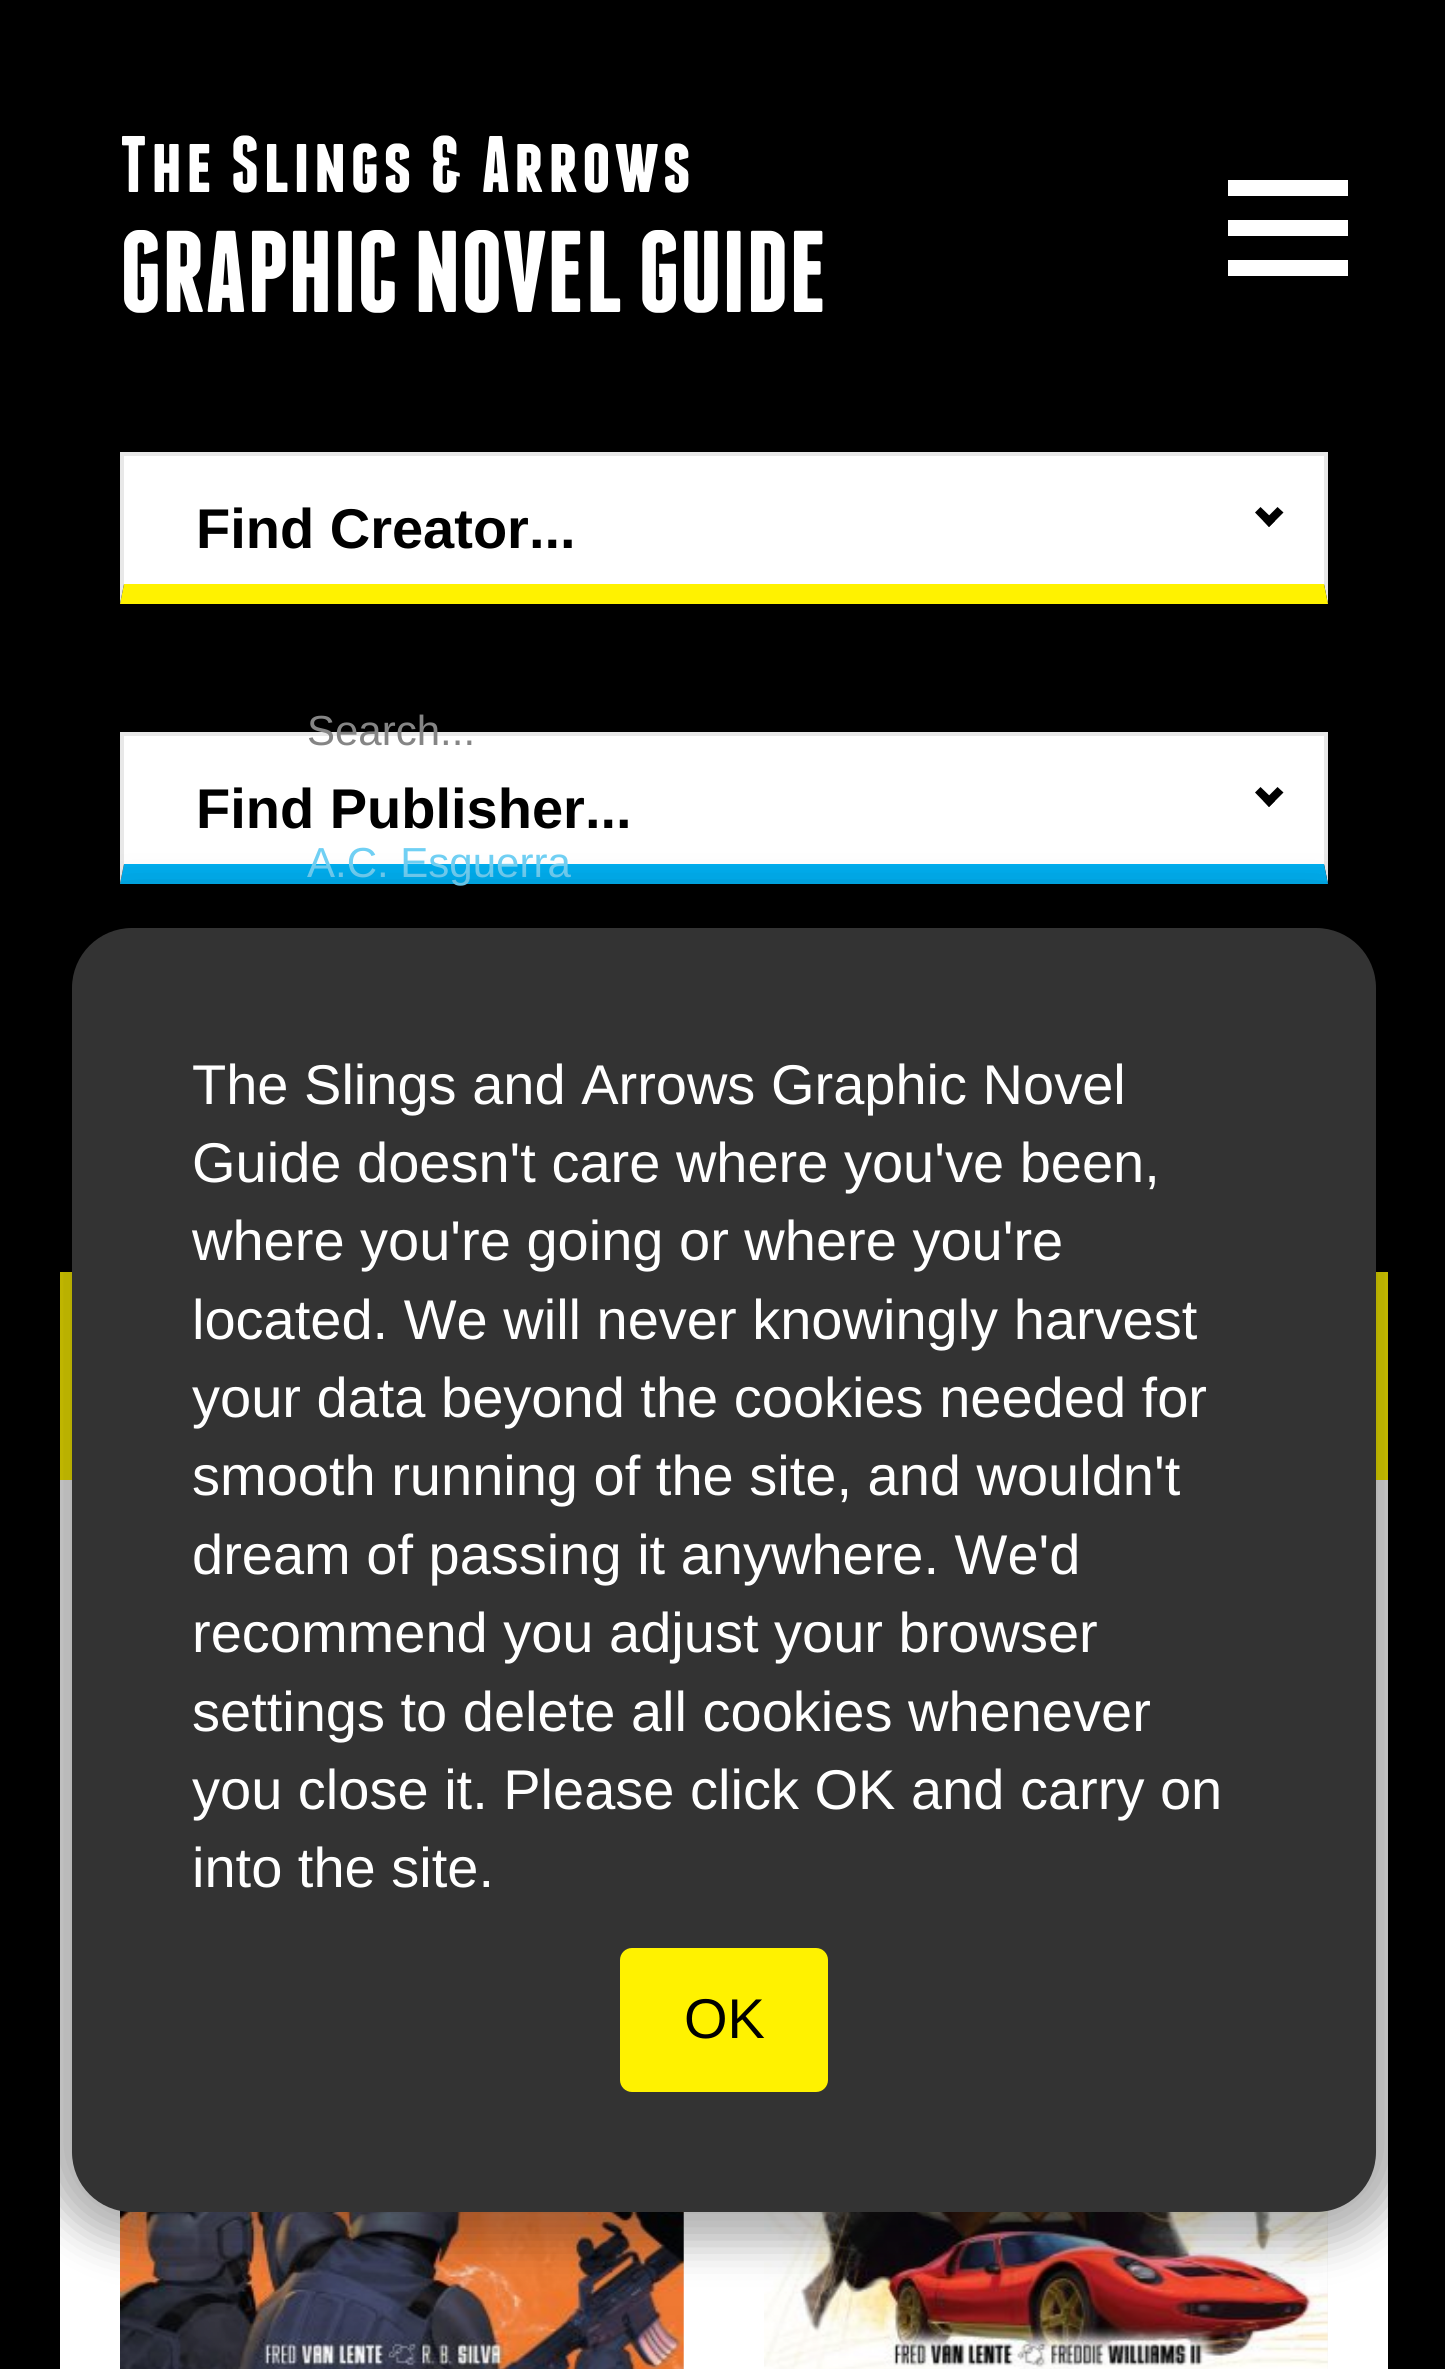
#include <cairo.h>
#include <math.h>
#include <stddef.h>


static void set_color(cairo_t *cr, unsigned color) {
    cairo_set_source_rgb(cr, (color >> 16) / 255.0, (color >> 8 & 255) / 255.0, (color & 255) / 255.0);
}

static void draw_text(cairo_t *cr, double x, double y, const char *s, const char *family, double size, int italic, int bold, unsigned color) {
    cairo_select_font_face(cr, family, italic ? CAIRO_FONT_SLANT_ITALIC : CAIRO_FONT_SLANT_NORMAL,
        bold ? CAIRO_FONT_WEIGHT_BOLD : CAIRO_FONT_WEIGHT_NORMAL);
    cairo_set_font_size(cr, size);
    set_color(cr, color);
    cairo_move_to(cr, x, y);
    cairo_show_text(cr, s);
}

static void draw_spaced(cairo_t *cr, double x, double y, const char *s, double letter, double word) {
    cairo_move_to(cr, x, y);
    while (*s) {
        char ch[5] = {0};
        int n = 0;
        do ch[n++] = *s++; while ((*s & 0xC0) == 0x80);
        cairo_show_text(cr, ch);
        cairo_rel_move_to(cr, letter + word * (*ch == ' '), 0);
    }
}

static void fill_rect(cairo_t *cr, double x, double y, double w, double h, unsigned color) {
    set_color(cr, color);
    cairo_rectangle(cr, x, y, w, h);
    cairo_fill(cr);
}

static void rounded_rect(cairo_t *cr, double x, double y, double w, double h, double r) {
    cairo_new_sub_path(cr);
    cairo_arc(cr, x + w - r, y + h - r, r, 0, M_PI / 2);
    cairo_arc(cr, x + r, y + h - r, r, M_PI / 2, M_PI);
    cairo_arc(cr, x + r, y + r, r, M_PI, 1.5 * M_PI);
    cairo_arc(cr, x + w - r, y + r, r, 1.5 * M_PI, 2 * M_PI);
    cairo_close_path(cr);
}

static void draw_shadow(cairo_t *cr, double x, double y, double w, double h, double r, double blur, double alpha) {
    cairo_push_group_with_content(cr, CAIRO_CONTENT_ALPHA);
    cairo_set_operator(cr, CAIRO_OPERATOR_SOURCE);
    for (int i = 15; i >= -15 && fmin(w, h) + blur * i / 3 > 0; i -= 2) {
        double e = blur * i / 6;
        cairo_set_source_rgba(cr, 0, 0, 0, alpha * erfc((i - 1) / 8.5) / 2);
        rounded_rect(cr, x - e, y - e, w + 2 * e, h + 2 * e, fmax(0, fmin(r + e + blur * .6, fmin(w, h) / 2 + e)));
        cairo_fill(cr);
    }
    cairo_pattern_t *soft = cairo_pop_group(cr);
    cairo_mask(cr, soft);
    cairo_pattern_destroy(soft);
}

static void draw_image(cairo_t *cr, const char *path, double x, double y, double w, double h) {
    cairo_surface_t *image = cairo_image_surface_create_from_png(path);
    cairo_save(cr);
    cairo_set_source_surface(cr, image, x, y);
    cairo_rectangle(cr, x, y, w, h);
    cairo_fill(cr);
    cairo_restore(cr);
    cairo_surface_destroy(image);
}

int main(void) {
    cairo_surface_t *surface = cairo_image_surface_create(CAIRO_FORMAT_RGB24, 1445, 2369);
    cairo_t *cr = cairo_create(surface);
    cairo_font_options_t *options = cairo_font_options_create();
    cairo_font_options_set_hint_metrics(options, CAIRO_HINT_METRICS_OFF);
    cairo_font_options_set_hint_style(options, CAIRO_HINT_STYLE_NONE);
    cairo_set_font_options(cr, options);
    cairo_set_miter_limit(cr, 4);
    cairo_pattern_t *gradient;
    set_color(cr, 0x000000);
    cairo_paint(cr);
    cairo_select_font_face(cr, "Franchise", CAIRO_FONT_SLANT_NORMAL, CAIRO_FONT_WEIGHT_BOLD);
    cairo_set_font_size(cr, 80);
    set_color(cr, 0xFFFFFF);
    draw_spaced(cr, 120, 192, "The Slings & Arrows", 4, 0);
    draw_text(cr, 120, 312, "GRAPHIC NOVEL GUIDE", "Franchise", 116, 0, 1, 0xFFFFFF);
    fill_rect(cr, 1228, 180, 120, 16, 0xFFFFFF);
    fill_rect(cr, 1228, 220, 120, 16, 0xFFFFFF);
    fill_rect(cr, 1228, 260, 120, 16, 0xFFFFFF);
    fill_rect(cr, 124, 456, 1200, 128, 0xFFFFFF);
    fill_rect(cr, 120, 452, 1208, 4, 0xE8E8E8);
    cairo_new_path(cr);
    cairo_move_to(cr, 1328, 452);
    cairo_line_to(cr, 1328, 604);
    cairo_line_to(cr, 1324, 584);
    cairo_line_to(cr, 1324, 456);
    cairo_close_path(cr);
    cairo_fill(cr);
    set_color(cr, 0xFFF200);
    cairo_new_path(cr);
    cairo_move_to(cr, 1328, 604);
    cairo_line_to(cr, 120, 604);
    cairo_line_to(cr, 124, 584);
    cairo_line_to(cr, 1324, 584);
    cairo_close_path(cr);
    cairo_fill(cr);
    set_color(cr, 0xE8E8E8);
    cairo_new_path(cr);
    cairo_move_to(cr, 120, 604);
    cairo_line_to(cr, 120, 452);
    cairo_line_to(cr, 124, 456);
    cairo_line_to(cr, 124, 584);
    cairo_close_path(cr);
    cairo_fill(cr);
    draw_text(cr, 196, 548, "Find Creator...", "Liberation Sans", 56, 0, 1, 0x000000);
    cairo_new_path(cr);
    cairo_move_to(cr, 1277.5, 507);
    cairo_line_to(cr, 1283.5, 512.5);
    cairo_line_to(cr, 1269, 527);
    cairo_line_to(cr, 1263.5, 521);
    cairo_close_path(cr);
    cairo_fill(cr);
    cairo_new_path(cr);
    cairo_move_to(cr, 1260.5, 507);
    cairo_line_to(cr, 1275, 521);
    cairo_line_to(cr, 1269, 527);
    cairo_line_to(cr, 1255, 512.5);
    cairo_close_path(cr);
    cairo_fill(cr);
    fill_rect(cr, 124, 736, 1200, 128, 0xFFFFFF);
    fill_rect(cr, 120, 732, 1208, 4, 0xE8E8E8);
    draw_text(cr, 307, 745, "Search...", "Liberation Sans", 42, 0, 0, 0x858585);
    set_color(cr, 0xE8E8E8);
    cairo_new_path(cr);
    cairo_move_to(cr, 1328, 732);
    cairo_line_to(cr, 1328, 884);
    cairo_line_to(cr, 1324, 864);
    cairo_line_to(cr, 1324, 736);
    cairo_close_path(cr);
    cairo_fill(cr);
    set_color(cr, 0x00AEEF);
    cairo_new_path(cr);
    cairo_move_to(cr, 1328, 884);
    cairo_line_to(cr, 120, 884);
    cairo_line_to(cr, 124, 864);
    cairo_line_to(cr, 1324, 864);
    cairo_close_path(cr);
    cairo_fill(cr);
    draw_text(cr, 307, 877, "A.C. Esguerra", "Liberation Sans", 42, 0, 0, 0x70D0F4);
    set_color(cr, 0xE8E8E8);
    cairo_new_path(cr);
    cairo_move_to(cr, 120, 884);
    cairo_line_to(cr, 120, 732);
    cairo_line_to(cr, 124, 736);
    cairo_line_to(cr, 124, 864);
    cairo_close_path(cr);
    cairo_fill(cr);
    draw_text(cr, 196, 828, "Find Publisher...", "Liberation Sans", 56, 0, 1, 0x000000);
    cairo_new_path(cr);
    cairo_move_to(cr, 1277.5, 787);
    cairo_line_to(cr, 1283.5, 792.5);
    cairo_line_to(cr, 1269, 807);
    cairo_line_to(cr, 1263.5, 801);
    cairo_close_path(cr);
    cairo_fill(cr);
    cairo_new_path(cr);
    cairo_move_to(cr, 1260.5, 787);
    cairo_line_to(cr, 1275, 801);
    cairo_line_to(cr, 1269, 807);
    cairo_line_to(cr, 1255, 792.5);
    cairo_close_path(cr);
    cairo_fill(cr);
    fill_rect(cr, 60, 1480, 1328, 889, 0xFFFFFF);
    fill_rect(cr, 60, 1272, 1328, 208, 0xFFF200);
    gradient = cairo_pattern_create_linear(402, 1540, 402, 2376);
    cairo_pattern_add_color_stop_rgba(gradient, 0.5, 0.831, 0.831, 0.831, 1);
    cairo_pattern_add_color_stop_rgba(gradient, 1, 0.961, 0.961, 0.961, 1);
    cairo_set_source(cr, gradient);
    cairo_pattern_destroy(gradient);
    cairo_rectangle(cr, 683, 2212, 1, 157);
    cairo_fill(cr);
    draw_image(cr, "assets/img1.png", 120, 2210, 564, 159);
    gradient = cairo_pattern_create_linear(1046, 1540, 1046, 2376);
    cairo_pattern_add_color_stop_rgba(gradient, 0.5, 0.831, 0.831, 0.831, 1);
    cairo_pattern_add_color_stop_rgba(gradient, 1, 0.961, 0.961, 0.961, 1);
    cairo_set_source(cr, gradient);
    cairo_pattern_destroy(gradient);
    cairo_rectangle(cr, 1327, 2210, 1, 159);
    cairo_fill(cr);
    draw_image(cr, "assets/img2.png", 764, 2210, 564, 159);
    set_color(cr, 0x000000);
    draw_shadow(cr, 40, 896, 1368, 1348, 92, 20, 0.3);
    set_color(cr, 0x333333);
    rounded_rect(cr, 72, 928, 1304, 1284, 60);
    cairo_fill(cr);
    draw_text(cr, 192, 1104, "The Slings and Arrows Graphic Novel", "Liberation Sans", 56, 0, 0, 0xFFFFFF);
    draw_text(cr, 192, 1182, "Guide doesn't care where you've been,", "Liberation Sans", 56, 0, 0, 0xFFFFFF);
    draw_text(cr, 192, 1260, "where you're going or where you're", "Liberation Sans", 56, 0, 0, 0xFFFFFF);
    draw_text(cr, 192, 1339, "located. We will never knowingly harvest", "Liberation Sans", 56, 0, 0, 0xFFFFFF);
    draw_text(cr, 192, 1417, "your data beyond the cookies needed for", "Liberation Sans", 56, 0, 0, 0xFFFFFF);
    draw_text(cr, 192, 1495, "smooth running of the site, and wouldn't", "Liberation Sans", 56, 0, 0, 0xFFFFFF);
    draw_text(cr, 192, 1574, "dream of passing it anywhere. We'd", "Liberation Sans", 56, 0, 0, 0xFFFFFF);
    draw_text(cr, 192, 1652, "recommend you adjust your browser", "Liberation Sans", 56, 0, 0, 0xFFFFFF);
    draw_text(cr, 192, 1731, "settings to delete all cookies whenever", "Liberation Sans", 56, 0, 0, 0xFFFFFF);
    draw_text(cr, 192, 1809, "you close it. Please click OK and carry on", "Liberation Sans", 56, 0, 0, 0xFFFFFF);
    draw_text(cr, 192, 1887, "into the site.", "Liberation Sans", 56, 0, 0, 0xFFFFFF);
    set_color(cr, 0xFFF200);
    rounded_rect(cr, 620, 1948, 208, 144, 12);
    cairo_fill(cr);
    draw_text(cr, 684, 2038, "OK", "Liberation Sans", 56, 0, 0, 0x000000);
    cairo_surface_write_to_png(surface, "output.png");
    cairo_font_options_destroy(options);
    cairo_destroy(cr);
    cairo_surface_destroy(surface);
    return 0;
}
